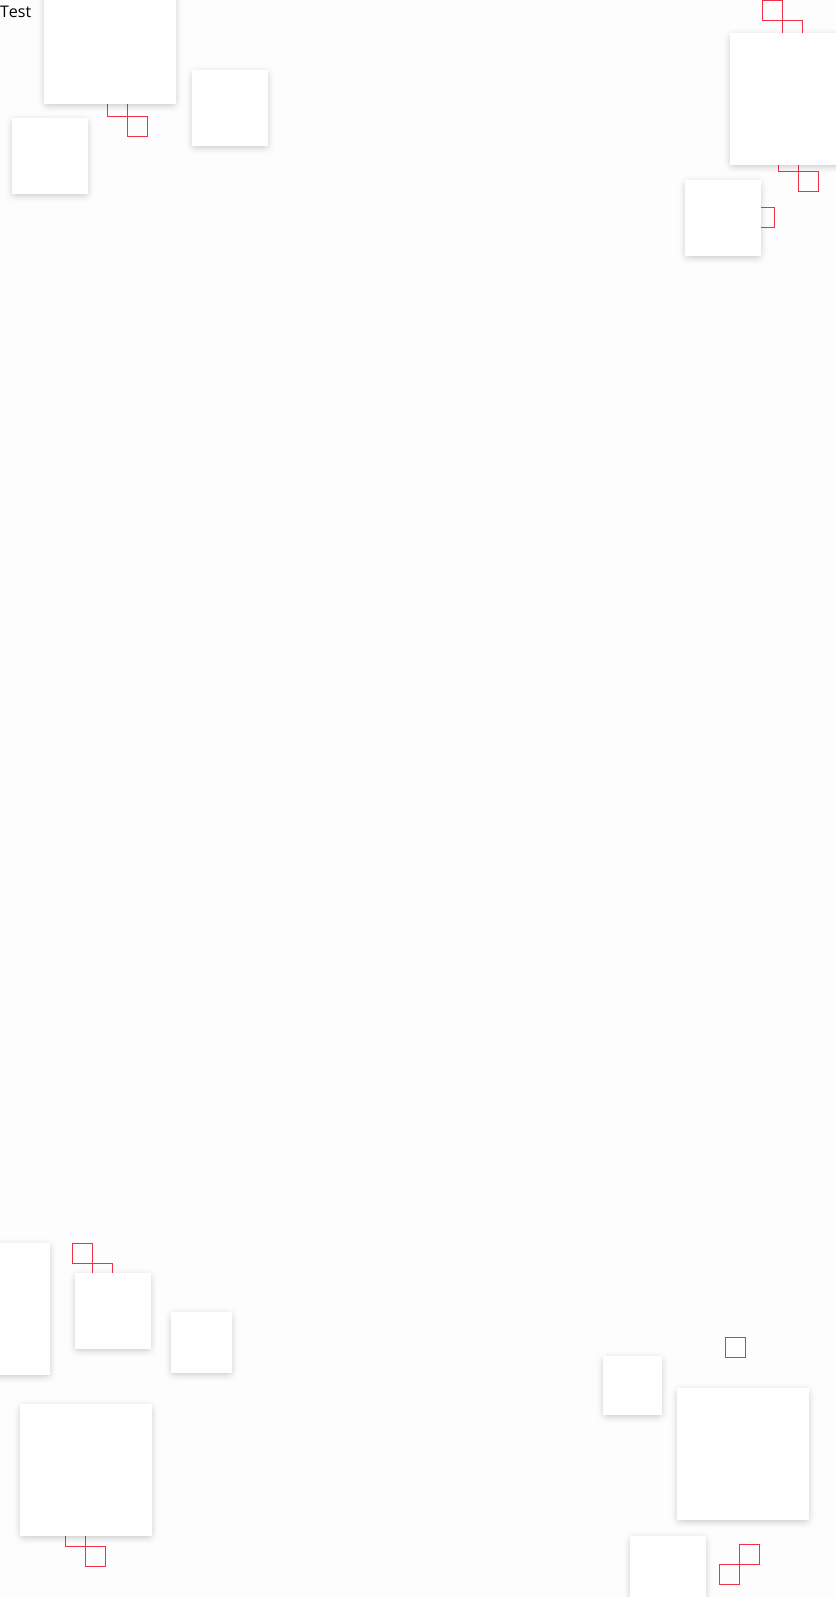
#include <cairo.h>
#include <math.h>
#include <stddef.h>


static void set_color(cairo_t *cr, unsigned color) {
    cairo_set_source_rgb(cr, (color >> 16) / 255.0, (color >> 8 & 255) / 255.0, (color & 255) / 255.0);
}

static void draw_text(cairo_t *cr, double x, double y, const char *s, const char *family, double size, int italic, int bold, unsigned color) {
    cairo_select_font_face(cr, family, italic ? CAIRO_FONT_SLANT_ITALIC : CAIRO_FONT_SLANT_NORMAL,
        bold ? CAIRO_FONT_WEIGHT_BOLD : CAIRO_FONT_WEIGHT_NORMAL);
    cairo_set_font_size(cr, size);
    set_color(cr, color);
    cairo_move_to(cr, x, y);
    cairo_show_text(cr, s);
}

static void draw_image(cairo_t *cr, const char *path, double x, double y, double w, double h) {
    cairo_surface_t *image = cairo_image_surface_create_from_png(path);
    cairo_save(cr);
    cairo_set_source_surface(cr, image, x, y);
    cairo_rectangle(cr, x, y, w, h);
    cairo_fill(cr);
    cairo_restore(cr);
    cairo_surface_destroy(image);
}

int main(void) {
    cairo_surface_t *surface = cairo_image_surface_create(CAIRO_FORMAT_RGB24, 836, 1597);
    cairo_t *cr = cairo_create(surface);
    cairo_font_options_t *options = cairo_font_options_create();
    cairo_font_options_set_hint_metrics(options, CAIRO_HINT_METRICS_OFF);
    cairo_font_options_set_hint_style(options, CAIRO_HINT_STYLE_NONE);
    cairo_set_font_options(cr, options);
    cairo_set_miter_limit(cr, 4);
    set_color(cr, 0xFDFDFE);
    cairo_paint(cr);
    draw_image(cr, "assets/img1.png", 0, 0, 836, 1597);
    draw_text(cr, 0, 17, "Test", "Open Sans", 16, 0, 0, 0x000000);
    cairo_surface_write_to_png(surface, "output.png");
    cairo_font_options_destroy(options);
    cairo_destroy(cr);
    cairo_surface_destroy(surface);
    return 0;
}
